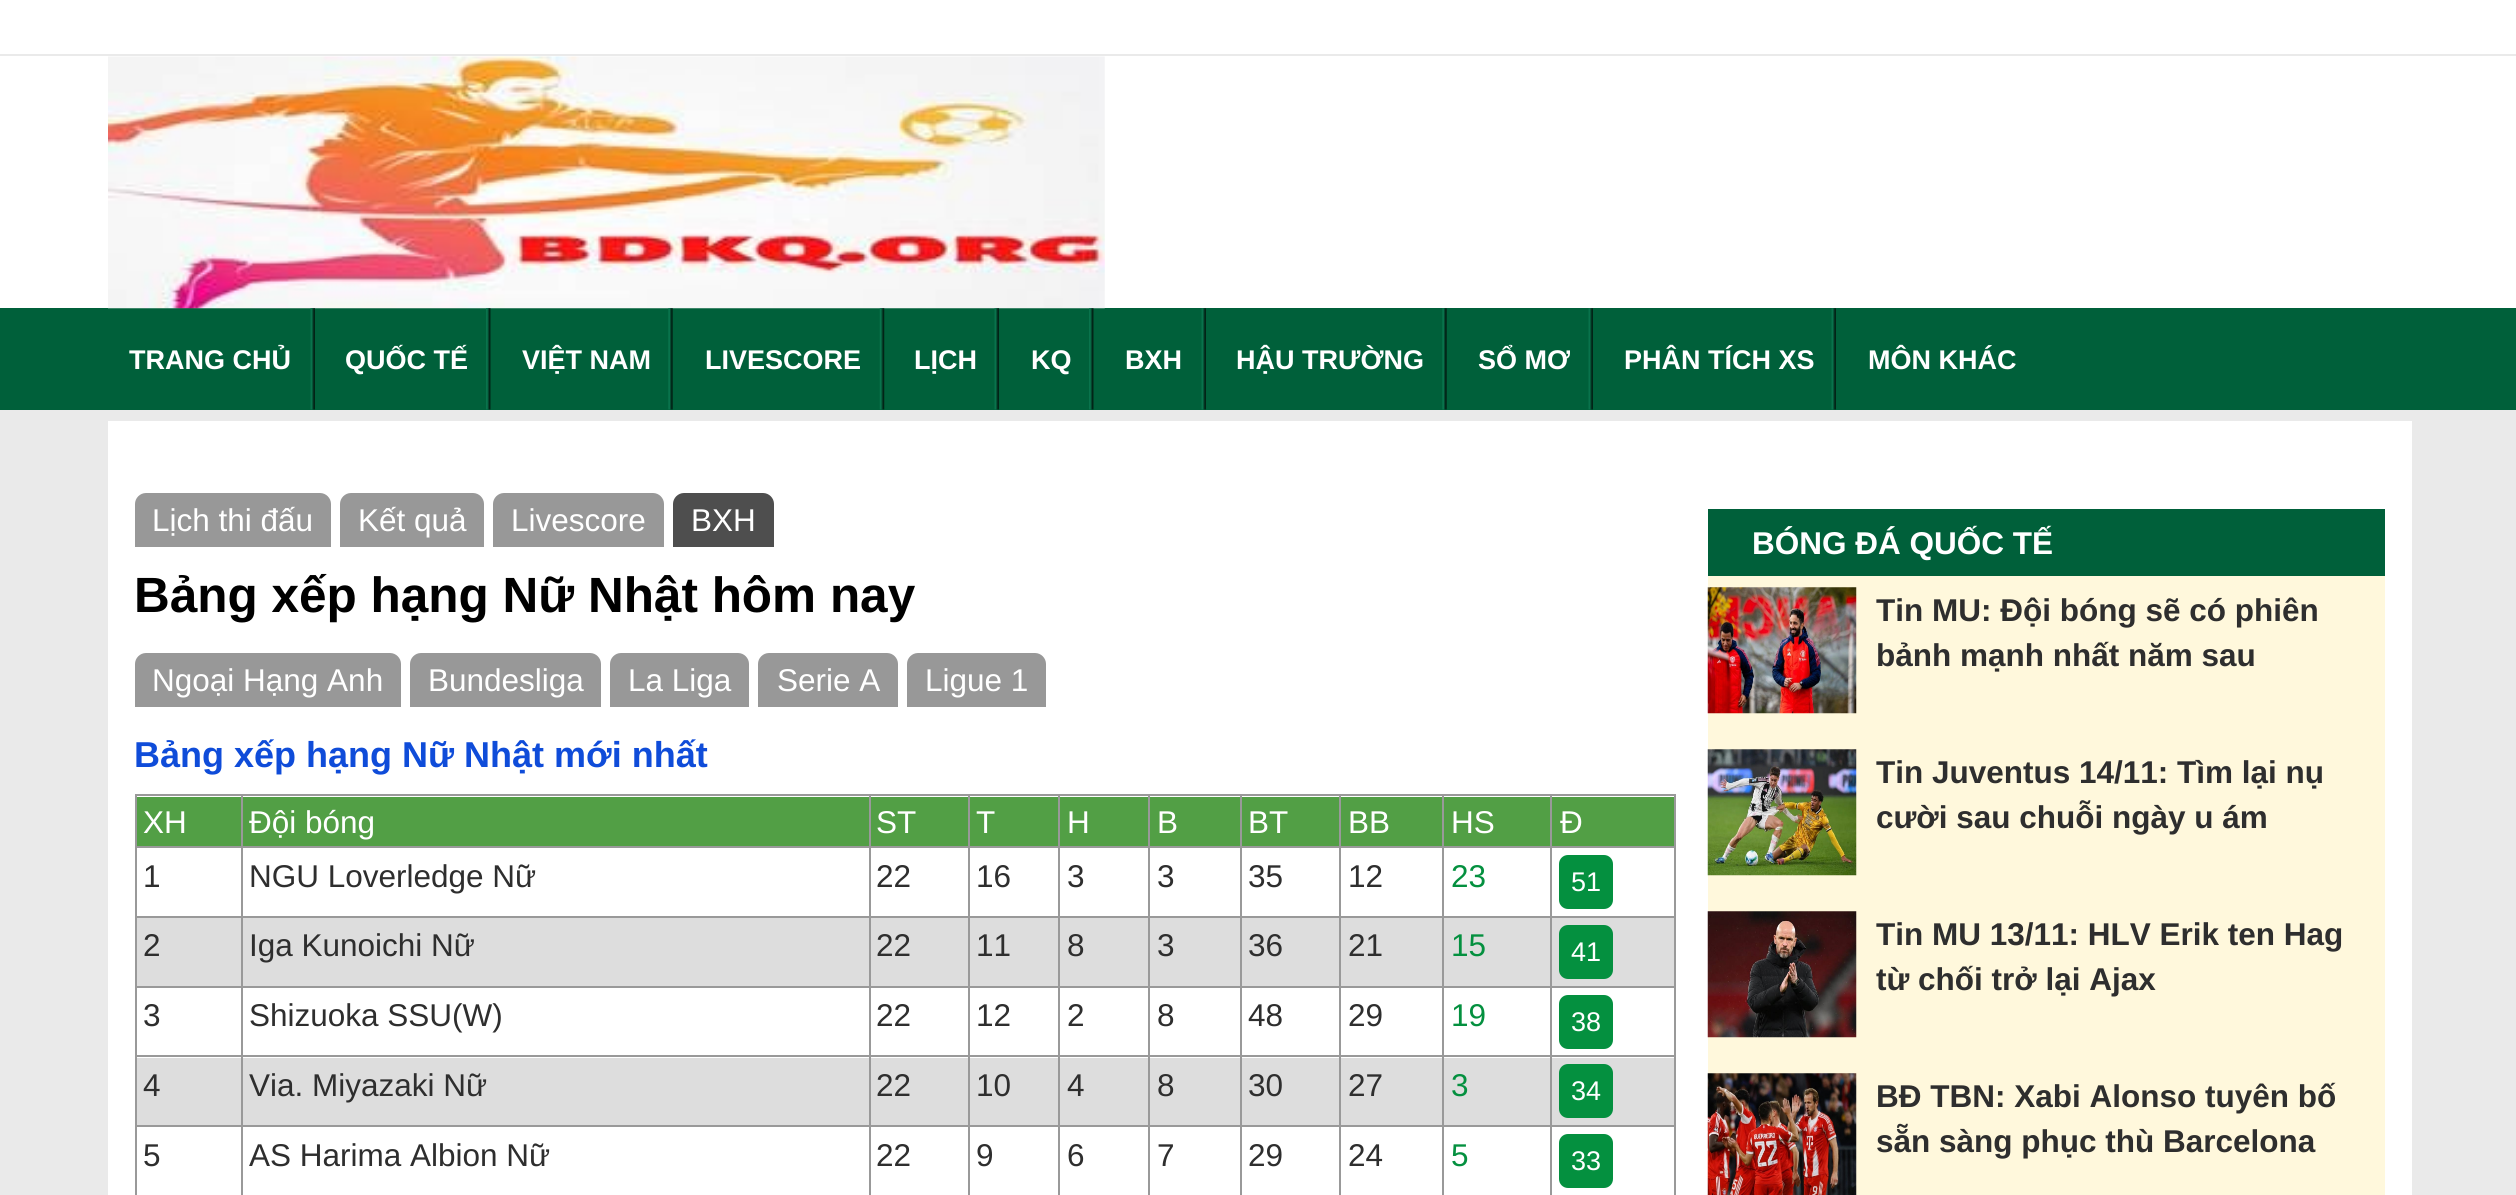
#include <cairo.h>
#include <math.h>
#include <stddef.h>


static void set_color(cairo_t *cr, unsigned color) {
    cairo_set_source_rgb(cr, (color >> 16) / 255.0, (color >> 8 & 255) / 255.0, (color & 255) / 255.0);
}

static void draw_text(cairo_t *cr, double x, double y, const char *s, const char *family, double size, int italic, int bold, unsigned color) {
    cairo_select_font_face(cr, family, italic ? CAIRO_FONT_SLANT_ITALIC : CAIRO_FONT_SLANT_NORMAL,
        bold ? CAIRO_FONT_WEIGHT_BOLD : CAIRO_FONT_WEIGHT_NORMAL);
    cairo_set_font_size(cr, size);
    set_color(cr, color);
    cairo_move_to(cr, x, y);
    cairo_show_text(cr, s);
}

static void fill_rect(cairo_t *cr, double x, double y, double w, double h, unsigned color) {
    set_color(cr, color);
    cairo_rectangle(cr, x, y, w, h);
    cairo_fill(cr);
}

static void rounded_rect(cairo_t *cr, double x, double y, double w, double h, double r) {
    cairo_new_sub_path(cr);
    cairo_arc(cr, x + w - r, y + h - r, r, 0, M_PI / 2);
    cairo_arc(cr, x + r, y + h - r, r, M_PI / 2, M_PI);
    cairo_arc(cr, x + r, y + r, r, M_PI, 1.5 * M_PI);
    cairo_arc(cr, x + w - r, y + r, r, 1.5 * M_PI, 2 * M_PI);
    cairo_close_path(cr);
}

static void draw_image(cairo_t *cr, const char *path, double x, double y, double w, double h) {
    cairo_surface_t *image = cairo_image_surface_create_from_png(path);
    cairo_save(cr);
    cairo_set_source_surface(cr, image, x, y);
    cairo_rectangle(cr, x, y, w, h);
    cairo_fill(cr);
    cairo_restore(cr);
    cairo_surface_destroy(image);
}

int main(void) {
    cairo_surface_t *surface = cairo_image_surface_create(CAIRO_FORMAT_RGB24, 2516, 1195);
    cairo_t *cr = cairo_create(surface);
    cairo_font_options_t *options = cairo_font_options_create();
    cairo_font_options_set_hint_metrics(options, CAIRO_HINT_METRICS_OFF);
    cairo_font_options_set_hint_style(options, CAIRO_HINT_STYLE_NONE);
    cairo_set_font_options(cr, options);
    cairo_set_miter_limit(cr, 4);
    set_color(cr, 0xEAEAEA);
    cairo_paint(cr);
    fill_rect(cr, 0, 0, 2516, 54, 0xFFFFFF);
    fill_rect(cr, 0, 56, 2516, 252, 0xFFFFFF);
    fill_rect(cr, 0, 308, 2516, 102, 0x00603A);
    draw_image(cr, "assets/img1.png", 108, 56, 997, 253);
    draw_image(cr, "assets/img2.png", 310, 308, 5, 102);
    draw_text(cr, 129, 369, "TRANG CHỦ", "Liberation Sans", 27, 0, 1, 0xFFFFFF);
    draw_image(cr, "assets/img3.png", 486, 308, 5, 102);
    draw_text(cr, 345, 369, "QUỐC TẾ", "Liberation Sans", 27, 0, 1, 0xFFFFFF);
    draw_image(cr, "assets/img4.png", 668, 308, 5, 102);
    draw_text(cr, 522, 369, "VIỆT NAM", "Liberation Sans", 27, 0, 1, 0xFFFFFF);
    draw_image(cr, "assets/img5.png", 879, 308, 6, 102);
    draw_text(cr, 705, 369, "LIVESCORE", "Liberation Sans", 27, 0, 1, 0xFFFFFF);
    draw_image(cr, "assets/img6.png", 994, 308, 5, 102);
    draw_text(cr, 914, 369, "LỊCH", "Liberation Sans", 27, 0, 1, 0xFFFFFF);
    draw_image(cr, "assets/img7.png", 1089, 308, 5, 102);
    draw_text(cr, 1031, 369, "KQ", "Liberation Sans", 27, 0, 1, 0xFFFFFF);
    draw_image(cr, "assets/img8.png", 1201, 308, 5, 102);
    draw_text(cr, 1125, 369, "BXH", "Liberation Sans", 27, 0, 1, 0xFFFFFF);
    draw_image(cr, "assets/img9.png", 1442, 308, 5, 102);
    draw_text(cr, 1236, 369, "HẬU TRƯỜNG", "Liberation Sans", 27, 0, 1, 0xFFFFFF);
    draw_image(cr, "assets/img8.png", 1588, 308, 5, 102);
    draw_text(cr, 1478, 369, "SỔ MƠ", "Liberation Sans", 27, 0, 1, 0xFFFFFF);
    draw_image(cr, "assets/img8.png", 1831, 308, 5, 102);
    draw_text(cr, 1624, 369, "PHÂN TÍCH XS", "Liberation Sans", 27, 0, 1, 0xFFFFFF);
    draw_text(cr, 1868, 369, "MÔN KHÁC", "Liberation Sans", 27, 0, 1, 0xFFFFFF);
    fill_rect(cr, 108, 421, 2304, 774, 0xFFFFFF);
    set_color(cr, 0x989898);
    cairo_new_path(cr);
    cairo_move_to(cr, 146, 493);
    cairo_line_to(cr, 320, 493);
    cairo_curve_to(cr, 326, 493, 331, 498, 331, 504);
    cairo_line_to(cr, 331, 547);
    cairo_line_to(cr, 135, 547);
    cairo_line_to(cr, 135, 504);
    cairo_curve_to(cr, 135, 498, 140, 493, 146, 493);
    cairo_close_path(cr);
    cairo_fill(cr);
    draw_text(cr, 152, 531, "Lịch thi đấu", "Liberation Sans", 31.5, 0, 0, 0xFFFFFF);
    set_color(cr, 0x989898);
    cairo_new_path(cr);
    cairo_move_to(cr, 351, 493);
    cairo_line_to(cr, 473, 493);
    cairo_curve_to(cr, 479, 493, 484, 498, 484, 504);
    cairo_line_to(cr, 484, 547);
    cairo_line_to(cr, 340, 547);
    cairo_line_to(cr, 340, 504);
    cairo_curve_to(cr, 340, 498, 345, 493, 351, 493);
    cairo_close_path(cr);
    cairo_fill(cr);
    draw_text(cr, 358, 531, "Kết quả", "Liberation Sans", 31.5, 0, 0, 0xFFFFFF);
    set_color(cr, 0x989898);
    cairo_new_path(cr);
    cairo_move_to(cr, 504, 493);
    cairo_line_to(cr, 653, 493);
    cairo_curve_to(cr, 659, 493, 664, 498, 664, 504);
    cairo_line_to(cr, 664, 547);
    cairo_line_to(cr, 493, 547);
    cairo_line_to(cr, 493, 504);
    cairo_curve_to(cr, 493, 498, 498, 493, 504, 493);
    cairo_close_path(cr);
    cairo_fill(cr);
    draw_text(cr, 511, 531, "Livescore", "Liberation Sans", 31.5, 0, 0, 0xFFFFFF);
    set_color(cr, 0x4E4E4E);
    cairo_new_path(cr);
    cairo_move_to(cr, 684, 493);
    cairo_line_to(cr, 763, 493);
    cairo_curve_to(cr, 769, 493, 774, 498, 774, 504);
    cairo_line_to(cr, 774, 547);
    cairo_line_to(cr, 673, 547);
    cairo_line_to(cr, 673, 504);
    cairo_curve_to(cr, 673, 498, 678, 493, 684, 493);
    cairo_close_path(cr);
    cairo_fill(cr);
    draw_text(cr, 691, 531, "BXH", "Liberation Sans", 31.5, 0, 0, 0xFFFFFF);
    draw_text(cr, 134, 612, "Bảng xếp hạng Nữ Nhật hôm nay", "Liberation Sans", 49.5, 0, 1, 0x000000);
    set_color(cr, 0x989898);
    cairo_new_path(cr);
    cairo_move_to(cr, 146, 653);
    cairo_line_to(cr, 390, 653);
    cairo_curve_to(cr, 396, 653, 401, 658, 401, 664);
    cairo_line_to(cr, 401, 707);
    cairo_line_to(cr, 135, 707);
    cairo_line_to(cr, 135, 664);
    cairo_curve_to(cr, 135, 658, 140, 653, 146, 653);
    cairo_close_path(cr);
    cairo_fill(cr);
    draw_text(cr, 152, 691, "Ngoại Hạng Anh", "Liberation Sans", 31.5, 0, 0, 0xFFFFFF);
    set_color(cr, 0x989898);
    cairo_new_path(cr);
    cairo_move_to(cr, 421, 653);
    cairo_line_to(cr, 590, 653);
    cairo_curve_to(cr, 596, 653, 601, 658, 601, 664);
    cairo_line_to(cr, 601, 707);
    cairo_line_to(cr, 410, 707);
    cairo_line_to(cr, 410, 664);
    cairo_curve_to(cr, 410, 658, 415, 653, 421, 653);
    cairo_close_path(cr);
    cairo_fill(cr);
    draw_text(cr, 428, 691, "Bundesliga", "Liberation Sans", 31.5, 0, 0, 0xFFFFFF);
    set_color(cr, 0x989898);
    cairo_new_path(cr);
    cairo_move_to(cr, 621, 653);
    cairo_line_to(cr, 738, 653);
    cairo_curve_to(cr, 744, 653, 749, 658, 749, 664);
    cairo_line_to(cr, 749, 707);
    cairo_line_to(cr, 610, 707);
    cairo_line_to(cr, 610, 664);
    cairo_curve_to(cr, 610, 658, 615, 653, 621, 653);
    cairo_close_path(cr);
    cairo_fill(cr);
    draw_text(cr, 628, 691, "La Liga", "Liberation Sans", 31.5, 0, 0, 0xFFFFFF);
    set_color(cr, 0x989898);
    cairo_new_path(cr);
    cairo_move_to(cr, 769, 653);
    cairo_line_to(cr, 887, 653);
    cairo_curve_to(cr, 893, 653, 898, 658, 898, 664);
    cairo_line_to(cr, 898, 707);
    cairo_line_to(cr, 758, 707);
    cairo_line_to(cr, 758, 664);
    cairo_curve_to(cr, 758, 658, 763, 653, 769, 653);
    cairo_close_path(cr);
    cairo_fill(cr);
    draw_text(cr, 777, 691, "Serie A", "Liberation Sans", 31.5, 0, 0, 0xFFFFFF);
    set_color(cr, 0x989898);
    cairo_new_path(cr);
    cairo_move_to(cr, 918, 653);
    cairo_line_to(cr, 1035, 653);
    cairo_curve_to(cr, 1041, 653, 1046, 658, 1046, 664);
    cairo_line_to(cr, 1046, 707);
    cairo_line_to(cr, 907, 707);
    cairo_line_to(cr, 907, 664);
    cairo_curve_to(cr, 907, 658, 912, 653, 918, 653);
    cairo_close_path(cr);
    cairo_fill(cr);
    draw_text(cr, 925, 691, "Ligue 1", "Liberation Sans", 31.5, 0, 0, 0xFFFFFF);
    draw_text(cr, 134, 767, "Bảng xếp hạng Nữ Nhật mới nhất", "Liberation Sans", 36, 0, 1, 0x0F4CD9);
    fill_rect(cr, 137, 797, 104, 49, 0x529F45);
    fill_rect(cr, 1550, 794, 126, 2, 0x999999);
    fill_rect(cr, 1444, 797, 230, 49, 0x529F45);
    fill_rect(cr, 1550, 846, 126, 2, 0x999999);
    fill_rect(cr, 1550, 916, 126, 2, 0x999999);
    fill_rect(cr, 137, 918, 1537, 68, 0xDDDDDD);
    fill_rect(cr, 1550, 986, 126, 2, 0x999999);
    fill_rect(cr, 1550, 1055, 126, 2, 0x999999);
    fill_rect(cr, 137, 1058, 1537, 67, 0xDDDDDD);
    fill_rect(cr, 1550, 1125, 126, 2, 0x999999);
    fill_rect(cr, 1550, 1125, 2, 70, 0x999999);
    fill_rect(cr, 1442, 1125, 111, 2, 0x999999);
    fill_rect(cr, 1550, 1055, 2, 72, 0x999999);
    fill_rect(cr, 1442, 1055, 111, 2, 0x999999);
    fill_rect(cr, 1550, 986, 2, 72, 0x999999);
    fill_rect(cr, 1442, 986, 111, 2, 0x999999);
    fill_rect(cr, 1550, 916, 2, 72, 0x999999);
    fill_rect(cr, 1442, 916, 111, 2, 0x999999);
    fill_rect(cr, 1550, 846, 2, 72, 0x999999);
    fill_rect(cr, 1442, 846, 111, 2, 0x999999);
    fill_rect(cr, 1550, 794, 2, 54, 0x999999);
    fill_rect(cr, 1442, 794, 111, 2, 0x999999);
    fill_rect(cr, 1442, 1125, 2, 70, 0x999999);
    fill_rect(cr, 1339, 1125, 106, 2, 0x999999);
    fill_rect(cr, 1442, 1055, 2, 72, 0x999999);
    fill_rect(cr, 1339, 1055, 106, 2, 0x999999);
    fill_rect(cr, 1442, 986, 2, 72, 0x999999);
    fill_rect(cr, 1339, 986, 106, 2, 0x999999);
    fill_rect(cr, 1442, 916, 2, 72, 0x999999);
    fill_rect(cr, 1339, 916, 106, 2, 0x999999);
    fill_rect(cr, 1442, 846, 2, 72, 0x999999);
    fill_rect(cr, 1339, 846, 106, 2, 0x999999);
    fill_rect(cr, 1442, 794, 2, 54, 0x999999);
    fill_rect(cr, 1339, 794, 106, 2, 0x999999);
    fill_rect(cr, 1339, 1125, 2, 70, 0x999999);
    fill_rect(cr, 1240, 1125, 101, 2, 0x999999);
    fill_rect(cr, 1339, 1055, 2, 72, 0x999999);
    fill_rect(cr, 1240, 1055, 101, 2, 0x999999);
    fill_rect(cr, 1339, 986, 2, 72, 0x999999);
    fill_rect(cr, 1240, 986, 101, 2, 0x999999);
    fill_rect(cr, 1339, 916, 2, 72, 0x999999);
    fill_rect(cr, 1240, 916, 101, 2, 0x999999);
    fill_rect(cr, 1339, 846, 2, 72, 0x999999);
    fill_rect(cr, 1240, 846, 101, 2, 0x999999);
    fill_rect(cr, 1339, 794, 2, 54, 0x999999);
    fill_rect(cr, 1240, 794, 101, 2, 0x999999);
    fill_rect(cr, 1240, 1125, 2, 70, 0x999999);
    fill_rect(cr, 1148, 1125, 94, 2, 0x999999);
    fill_rect(cr, 1240, 1055, 2, 72, 0x999999);
    fill_rect(cr, 1148, 1055, 94, 2, 0x999999);
    fill_rect(cr, 1240, 986, 2, 72, 0x999999);
    fill_rect(cr, 1148, 986, 94, 2, 0x999999);
    fill_rect(cr, 1240, 916, 2, 72, 0x999999);
    fill_rect(cr, 1148, 916, 94, 2, 0x999999);
    fill_rect(cr, 1240, 846, 2, 72, 0x999999);
    fill_rect(cr, 1148, 846, 94, 2, 0x999999);
    fill_rect(cr, 1240, 794, 2, 54, 0x999999);
    fill_rect(cr, 1148, 794, 94, 2, 0x999999);
    fill_rect(cr, 1148, 1125, 2, 70, 0x999999);
    fill_rect(cr, 1058, 1125, 92, 2, 0x999999);
    fill_rect(cr, 1148, 1055, 2, 72, 0x999999);
    fill_rect(cr, 1058, 1055, 92, 2, 0x999999);
    fill_rect(cr, 1148, 986, 2, 72, 0x999999);
    fill_rect(cr, 1058, 986, 92, 2, 0x999999);
    fill_rect(cr, 1148, 916, 2, 72, 0x999999);
    fill_rect(cr, 1058, 916, 92, 2, 0x999999);
    fill_rect(cr, 1148, 846, 2, 72, 0x999999);
    fill_rect(cr, 1058, 846, 92, 2, 0x999999);
    fill_rect(cr, 1148, 794, 2, 54, 0x999999);
    fill_rect(cr, 1058, 794, 92, 2, 0x999999);
    fill_rect(cr, 1058, 1125, 2, 70, 0x999999);
    fill_rect(cr, 968, 1125, 92, 2, 0x999999);
    fill_rect(cr, 1058, 1055, 2, 72, 0x999999);
    fill_rect(cr, 968, 1055, 92, 2, 0x999999);
    fill_rect(cr, 1058, 986, 2, 72, 0x999999);
    fill_rect(cr, 968, 986, 92, 2, 0x999999);
    fill_rect(cr, 1058, 916, 2, 72, 0x999999);
    fill_rect(cr, 968, 916, 92, 2, 0x999999);
    fill_rect(cr, 1058, 846, 2, 72, 0x999999);
    fill_rect(cr, 968, 846, 92, 2, 0x999999);
    fill_rect(cr, 1058, 794, 2, 54, 0x999999);
    fill_rect(cr, 968, 794, 92, 2, 0x999999);
    fill_rect(cr, 968, 1125, 2, 70, 0x999999);
    fill_rect(cr, 869, 1125, 101, 2, 0x999999);
    fill_rect(cr, 968, 1055, 2, 72, 0x999999);
    fill_rect(cr, 869, 1055, 101, 2, 0x999999);
    fill_rect(cr, 968, 986, 2, 72, 0x999999);
    fill_rect(cr, 869, 986, 101, 2, 0x999999);
    fill_rect(cr, 968, 916, 2, 72, 0x999999);
    fill_rect(cr, 869, 916, 101, 2, 0x999999);
    fill_rect(cr, 968, 846, 2, 72, 0x999999);
    fill_rect(cr, 869, 846, 101, 2, 0x999999);
    fill_rect(cr, 968, 794, 2, 54, 0x999999);
    fill_rect(cr, 869, 794, 101, 2, 0x999999);
    fill_rect(cr, 869, 1125, 2, 70, 0x999999);
    fill_rect(cr, 241, 1125, 630, 2, 0x999999);
    fill_rect(cr, 869, 1055, 2, 72, 0x999999);
    fill_rect(cr, 241, 1055, 630, 2, 0x999999);
    fill_rect(cr, 869, 986, 2, 72, 0x999999);
    fill_rect(cr, 241, 986, 630, 2, 0x999999);
    fill_rect(cr, 869, 916, 2, 72, 0x999999);
    fill_rect(cr, 241, 916, 630, 2, 0x999999);
    fill_rect(cr, 869, 846, 2, 72, 0x999999);
    fill_rect(cr, 241, 846, 630, 2, 0x999999);
    fill_rect(cr, 869, 794, 2, 54, 0x999999);
    fill_rect(cr, 241, 794, 630, 2, 0x999999);
    fill_rect(cr, 241, 1125, 2, 70, 0x999999);
    fill_rect(cr, 135, 1125, 108, 2, 0x999999);
    fill_rect(cr, 241, 1055, 2, 72, 0x999999);
    fill_rect(cr, 135, 1055, 108, 2, 0x999999);
    fill_rect(cr, 241, 986, 2, 72, 0x999999);
    fill_rect(cr, 135, 986, 108, 2, 0x999999);
    fill_rect(cr, 241, 916, 2, 72, 0x999999);
    fill_rect(cr, 135, 916, 108, 2, 0x999999);
    fill_rect(cr, 241, 846, 2, 72, 0x999999);
    fill_rect(cr, 135, 846, 108, 2, 0x999999);
    fill_rect(cr, 241, 794, 2, 54, 0x999999);
    fill_rect(cr, 135, 794, 108, 2, 0x999999);
    fill_rect(cr, 135, 1125, 2, 70, 0x999999);
    fill_rect(cr, 135, 1055, 2, 72, 0x999999);
    fill_rect(cr, 135, 986, 2, 72, 0x999999);
    fill_rect(cr, 135, 916, 2, 72, 0x999999);
    fill_rect(cr, 135, 846, 2, 72, 0x999999);
    fill_rect(cr, 135, 794, 2, 54, 0x999999);
    draw_text(cr, 143, 833, "XH", "Liberation Sans", 31.5, 0, 0, 0xFFFFFF);
    fill_rect(cr, 243, 797, 626, 49, 0x529F45);
    draw_text(cr, 249, 833, "Đội bóng", "Liberation Sans", 31.5, 0, 0, 0xFFFFFF);
    fill_rect(cr, 871, 797, 97, 49, 0x529F45);
    draw_text(cr, 876, 833, "ST", "Liberation Sans", 31.5, 0, 0, 0xFFFFFF);
    fill_rect(cr, 970, 797, 88, 49, 0x529F45);
    draw_text(cr, 976, 833, "T", "Liberation Sans", 31.5, 0, 0, 0xFFFFFF);
    fill_rect(cr, 1060, 797, 88, 49, 0x529F45);
    draw_text(cr, 1067, 833, "H", "Liberation Sans", 31.5, 0, 0, 0xFFFFFF);
    fill_rect(cr, 1150, 797, 90, 49, 0x529F45);
    draw_text(cr, 1157, 833, "B", "Liberation Sans", 31.5, 0, 0, 0xFFFFFF);
    fill_rect(cr, 1242, 797, 97, 49, 0x529F45);
    draw_text(cr, 1248, 833, "BT", "Liberation Sans", 31.5, 0, 0, 0xFFFFFF);
    fill_rect(cr, 1341, 797, 101, 49, 0x529F45);
    draw_text(cr, 1348, 833, "BB", "Liberation Sans", 31.5, 0, 0, 0xFFFFFF);
    draw_text(cr, 1451, 833, "HS", "Liberation Sans", 31.5, 0, 0, 0xFFFFFF);
    fill_rect(cr, 1674, 1125, 2, 70, 0x999999);
    fill_rect(cr, 1674, 1055, 2, 72, 0x999999);
    fill_rect(cr, 1674, 986, 2, 72, 0x999999);
    fill_rect(cr, 1674, 916, 2, 72, 0x999999);
    fill_rect(cr, 1674, 846, 2, 72, 0x999999);
    fill_rect(cr, 1674, 794, 2, 54, 0x999999);
    draw_text(cr, 1560, 833, "Đ", "Liberation Sans", 31.5, 0, 0, 0xFFFFFF);
    draw_text(cr, 143, 887, "1", "Liberation Sans", 31.5, 0, 0, 0x2E2E2E);
    draw_text(cr, 249, 887, "NGU Loverledge Nữ", "Liberation Sans", 31.5, 0, 0, 0x2E2E2E);
    draw_text(cr, 876, 887, "22", "Liberation Sans", 31.5, 0, 0, 0x2E2E2E);
    draw_text(cr, 976, 887, "16", "Liberation Sans", 31.5, 0, 0, 0x2E2E2E);
    draw_text(cr, 1067, 887, "3", "Liberation Sans", 31.5, 0, 0, 0x2E2E2E);
    draw_text(cr, 1157, 887, "3", "Liberation Sans", 31.5, 0, 0, 0x2E2E2E);
    draw_text(cr, 1248, 887, "35", "Liberation Sans", 31.5, 0, 0, 0x2E2E2E);
    draw_text(cr, 1348, 887, "12", "Liberation Sans", 31.5, 0, 0, 0x2E2E2E);
    draw_text(cr, 1451, 887, "23", "Liberation Sans", 31.5, 0, 0, 0x04903F);
    rounded_rect(cr, 1559, 855, 54, 54, 9);
    cairo_fill(cr);
    draw_text(cr, 1571, 891, "51", "Liberation Sans", 27, 0, 0, 0xFFFFFF);
    draw_text(cr, 143, 956, "2", "Liberation Sans", 31.5, 0, 0, 0x2E2E2E);
    draw_text(cr, 249, 956, "Iga Kunoichi Nữ", "Liberation Sans", 31.5, 0, 0, 0x2E2E2E);
    draw_text(cr, 876, 956, "22", "Liberation Sans", 31.5, 0, 0, 0x2E2E2E);
    draw_text(cr, 976, 956, "11", "Liberation Sans", 31.5, 0, 0, 0x2E2E2E);
    draw_text(cr, 1067, 956, "8", "Liberation Sans", 31.5, 0, 0, 0x2E2E2E);
    draw_text(cr, 1157, 956, "3", "Liberation Sans", 31.5, 0, 0, 0x2E2E2E);
    draw_text(cr, 1248, 956, "36", "Liberation Sans", 31.5, 0, 0, 0x2E2E2E);
    draw_text(cr, 1348, 956, "21", "Liberation Sans", 31.5, 0, 0, 0x2E2E2E);
    draw_text(cr, 1451, 956, "15", "Liberation Sans", 31.5, 0, 0, 0x04903F);
    rounded_rect(cr, 1559, 925, 54, 54, 9);
    cairo_fill(cr);
    draw_text(cr, 1571, 961, "41", "Liberation Sans", 27, 0, 0, 0xFFFFFF);
    draw_text(cr, 143, 1026, "3", "Liberation Sans", 31.5, 0, 0, 0x2E2E2E);
    draw_text(cr, 249, 1026, "Shizuoka SSU(W)", "Liberation Sans", 31.5, 0, 0, 0x2E2E2E);
    draw_text(cr, 876, 1026, "22", "Liberation Sans", 31.5, 0, 0, 0x2E2E2E);
    draw_text(cr, 976, 1026, "12", "Liberation Sans", 31.5, 0, 0, 0x2E2E2E);
    draw_text(cr, 1067, 1026, "2", "Liberation Sans", 31.5, 0, 0, 0x2E2E2E);
    draw_text(cr, 1157, 1026, "8", "Liberation Sans", 31.5, 0, 0, 0x2E2E2E);
    draw_text(cr, 1248, 1026, "48", "Liberation Sans", 31.5, 0, 0, 0x2E2E2E);
    draw_text(cr, 1348, 1026, "29", "Liberation Sans", 31.5, 0, 0, 0x2E2E2E);
    draw_text(cr, 1451, 1026, "19", "Liberation Sans", 31.5, 0, 0, 0x04903F);
    rounded_rect(cr, 1559, 995, 54, 54, 9);
    cairo_fill(cr);
    draw_text(cr, 1571, 1031, "38", "Liberation Sans", 27, 0, 0, 0xFFFFFF);
    draw_text(cr, 143, 1096, "4", "Liberation Sans", 31.5, 0, 0, 0x2E2E2E);
    draw_text(cr, 249, 1096, "Via. Miyazaki Nữ", "Liberation Sans", 31.5, 0, 0, 0x2E2E2E);
    draw_text(cr, 876, 1096, "22", "Liberation Sans", 31.5, 0, 0, 0x2E2E2E);
    draw_text(cr, 976, 1096, "10", "Liberation Sans", 31.5, 0, 0, 0x2E2E2E);
    draw_text(cr, 1067, 1096, "4", "Liberation Sans", 31.5, 0, 0, 0x2E2E2E);
    draw_text(cr, 1157, 1096, "8", "Liberation Sans", 31.5, 0, 0, 0x2E2E2E);
    draw_text(cr, 1248, 1096, "30", "Liberation Sans", 31.5, 0, 0, 0x2E2E2E);
    draw_text(cr, 1348, 1096, "27", "Liberation Sans", 31.5, 0, 0, 0x2E2E2E);
    draw_text(cr, 1451, 1096, "3", "Liberation Sans", 31.5, 0, 0, 0x04903F);
    rounded_rect(cr, 1559, 1064, 54, 54, 9);
    cairo_fill(cr);
    draw_text(cr, 1571, 1100, "34", "Liberation Sans", 27, 0, 0, 0xFFFFFF);
    draw_text(cr, 143, 1166, "5", "Liberation Sans", 31.5, 0, 0, 0x2E2E2E);
    draw_text(cr, 249, 1166, "AS Harima Albion Nữ", "Liberation Sans", 31.5, 0, 0, 0x2E2E2E);
    draw_text(cr, 876, 1166, "22", "Liberation Sans", 31.5, 0, 0, 0x2E2E2E);
    draw_text(cr, 976, 1166, "9", "Liberation Sans", 31.5, 0, 0, 0x2E2E2E);
    draw_text(cr, 1067, 1166, "6", "Liberation Sans", 31.5, 0, 0, 0x2E2E2E);
    draw_text(cr, 1157, 1166, "7", "Liberation Sans", 31.5, 0, 0, 0x2E2E2E);
    draw_text(cr, 1248, 1166, "29", "Liberation Sans", 31.5, 0, 0, 0x2E2E2E);
    draw_text(cr, 1348, 1166, "24", "Liberation Sans", 31.5, 0, 0, 0x2E2E2E);
    draw_text(cr, 1451, 1166, "5", "Liberation Sans", 31.5, 0, 0, 0x04903F);
    rounded_rect(cr, 1559, 1134, 54, 54, 9);
    cairo_fill(cr);
    draw_text(cr, 1571, 1170, "33", "Liberation Sans", 27, 0, 0, 0xFFFFFF);
    fill_rect(cr, 1708, 509, 677, 67, 0x00603A);
    draw_text(cr, 1752, 554, "BÓNG ĐÁ QUỐC TẾ", "Liberation Sans", 31.5, 0, 1, 0xFFFFFF);
    fill_rect(cr, 1708, 576, 677, 619, 0xFFF8DC);
    draw_image(cr, "assets/img10.png", 1707, 587, 150, 127);
    draw_text(cr, 1876, 621, "Tin MU: Đội bóng sẽ có phiên", "Liberation Sans", 31.5, 0, 1, 0x2E2E2E);
    draw_text(cr, 1876, 666, "bảnh mạnh nhất năm sau", "Liberation Sans", 31.5, 0, 1, 0x2E2E2E);
    draw_image(cr, "assets/img11.png", 1707, 749, 150, 127);
    draw_text(cr, 1876, 783, "Tin Juventus 14/11: Tìm lại nụ", "Liberation Sans", 31.5, 0, 1, 0x2E2E2E);
    draw_text(cr, 1876, 828, "cười sau chuỗi ngày u ám", "Liberation Sans", 31.5, 0, 1, 0x2E2E2E);
    draw_image(cr, "assets/img12.png", 1707, 911, 150, 127);
    draw_text(cr, 1876, 945, "Tin MU 13/11: HLV Erik ten Hag", "Liberation Sans", 31.5, 0, 1, 0x2E2E2E);
    draw_text(cr, 1876, 990, "từ chối trở lại Ajax", "Liberation Sans", 31.5, 0, 1, 0x2E2E2E);
    draw_image(cr, "assets/img13.png", 1707, 1073, 150, 122);
    draw_text(cr, 1876, 1107, "BĐ TBN: Xabi Alonso tuyên bố", "Liberation Sans", 31.5, 0, 1, 0x2E2E2E);
    draw_text(cr, 1876, 1152, "sẵn sàng phục thù Barcelona", "Liberation Sans", 31.5, 0, 1, 0x2E2E2E);
    cairo_surface_write_to_png(surface, "output.png");
    cairo_font_options_destroy(options);
    cairo_destroy(cr);
    cairo_surface_destroy(surface);
    return 0;
}
